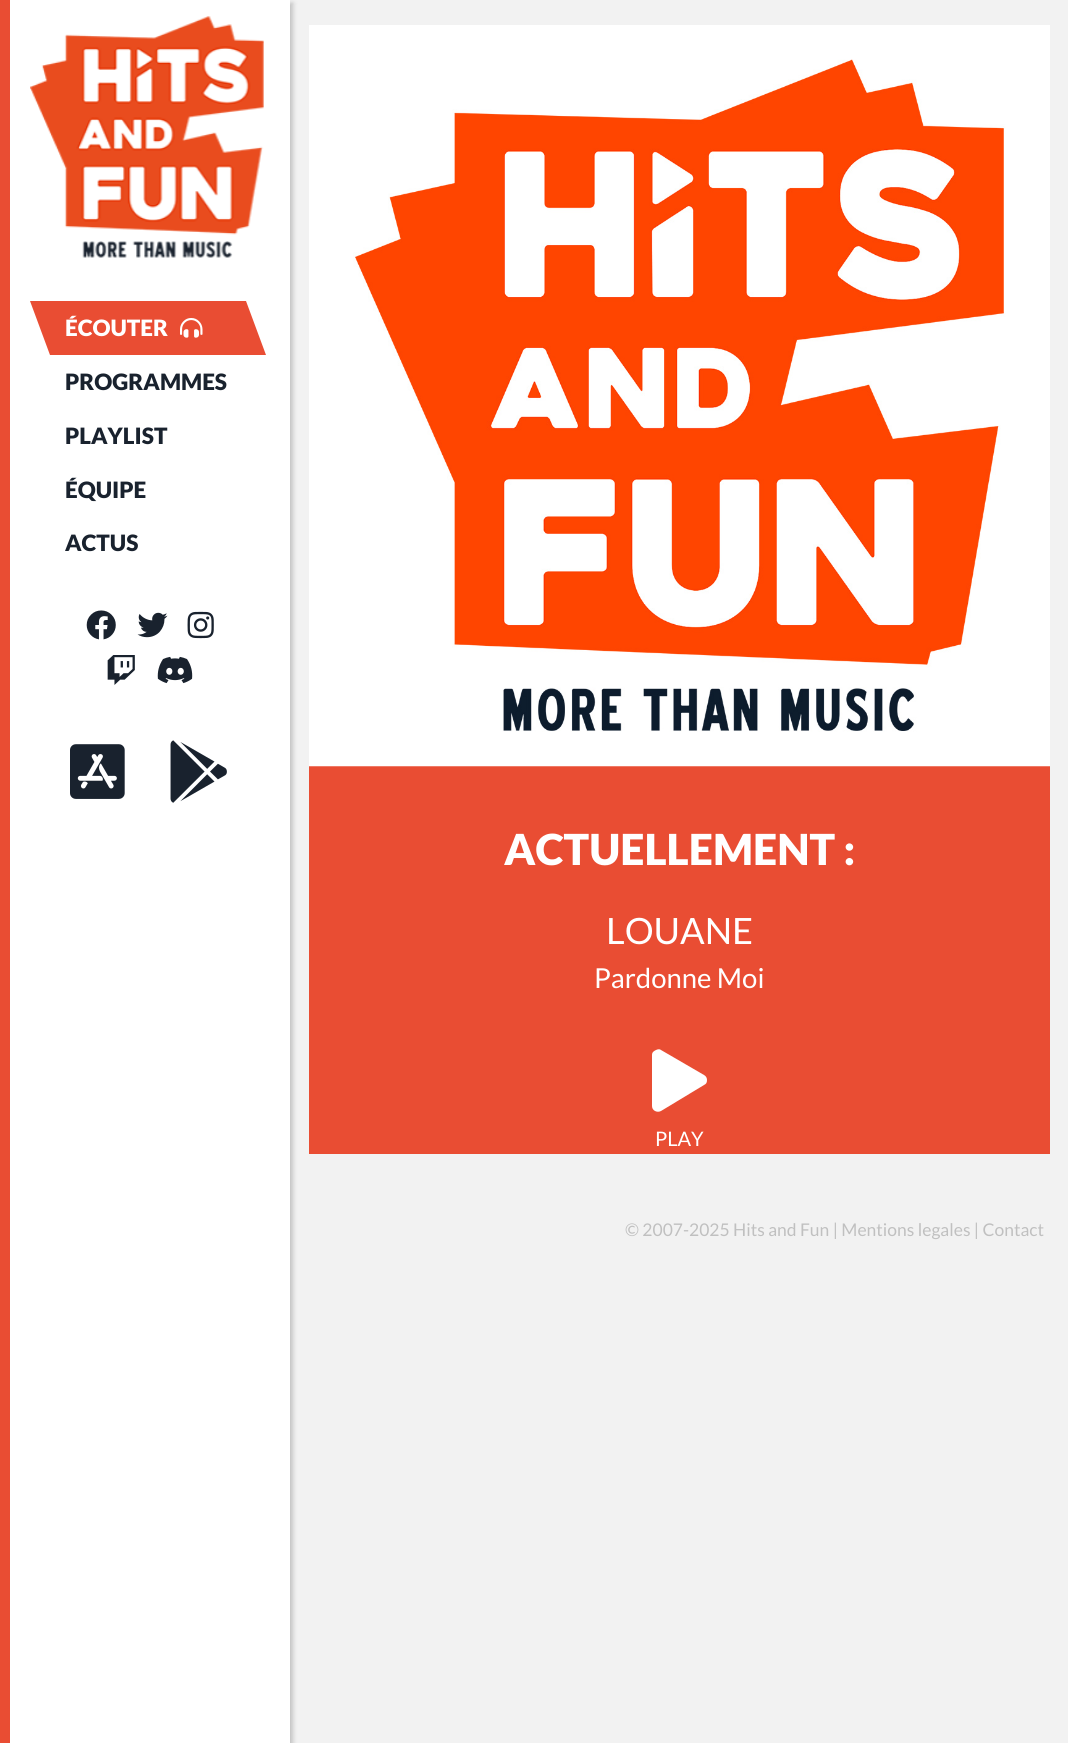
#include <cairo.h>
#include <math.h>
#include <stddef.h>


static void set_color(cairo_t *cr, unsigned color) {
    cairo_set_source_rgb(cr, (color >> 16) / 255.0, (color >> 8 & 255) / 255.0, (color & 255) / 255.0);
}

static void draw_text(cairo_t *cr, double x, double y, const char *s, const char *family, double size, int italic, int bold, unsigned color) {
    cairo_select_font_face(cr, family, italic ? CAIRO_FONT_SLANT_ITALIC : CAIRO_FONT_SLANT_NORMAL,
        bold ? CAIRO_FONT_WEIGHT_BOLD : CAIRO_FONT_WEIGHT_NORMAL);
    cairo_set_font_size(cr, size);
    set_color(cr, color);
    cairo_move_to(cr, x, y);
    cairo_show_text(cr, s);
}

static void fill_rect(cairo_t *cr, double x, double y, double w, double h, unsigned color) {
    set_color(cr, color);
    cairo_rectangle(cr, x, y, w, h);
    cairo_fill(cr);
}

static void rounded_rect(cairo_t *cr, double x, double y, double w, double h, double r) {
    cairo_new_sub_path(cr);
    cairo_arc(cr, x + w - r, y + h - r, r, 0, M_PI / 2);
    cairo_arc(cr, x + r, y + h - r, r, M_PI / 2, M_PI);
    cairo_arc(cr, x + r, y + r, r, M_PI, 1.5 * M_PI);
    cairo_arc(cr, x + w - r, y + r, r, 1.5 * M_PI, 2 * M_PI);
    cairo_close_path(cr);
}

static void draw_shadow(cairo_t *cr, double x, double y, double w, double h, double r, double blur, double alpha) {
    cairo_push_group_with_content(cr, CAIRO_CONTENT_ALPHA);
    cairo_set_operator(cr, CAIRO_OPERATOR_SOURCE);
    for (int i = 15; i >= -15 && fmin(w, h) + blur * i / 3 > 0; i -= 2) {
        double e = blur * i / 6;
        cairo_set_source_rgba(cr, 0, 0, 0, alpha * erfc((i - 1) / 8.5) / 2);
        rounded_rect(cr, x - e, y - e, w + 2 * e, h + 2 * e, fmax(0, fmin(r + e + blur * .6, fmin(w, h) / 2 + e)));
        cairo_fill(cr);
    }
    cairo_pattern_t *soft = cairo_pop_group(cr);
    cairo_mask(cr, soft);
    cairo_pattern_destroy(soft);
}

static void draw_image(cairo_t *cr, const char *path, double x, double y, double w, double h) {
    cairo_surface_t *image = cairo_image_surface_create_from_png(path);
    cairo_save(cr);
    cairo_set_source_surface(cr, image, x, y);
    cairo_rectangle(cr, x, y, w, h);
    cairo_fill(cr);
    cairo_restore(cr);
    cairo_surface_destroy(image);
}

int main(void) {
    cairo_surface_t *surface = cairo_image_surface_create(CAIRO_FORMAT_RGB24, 1068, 1743);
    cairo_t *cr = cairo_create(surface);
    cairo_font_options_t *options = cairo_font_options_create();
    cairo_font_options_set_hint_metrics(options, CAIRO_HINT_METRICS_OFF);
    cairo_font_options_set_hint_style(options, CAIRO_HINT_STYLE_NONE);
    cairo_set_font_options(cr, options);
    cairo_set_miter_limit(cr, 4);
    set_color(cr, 0xF2F2F2);
    cairo_paint(cr);
    set_color(cr, 0x000000);
    draw_shadow(cr, 3, 3, 290, 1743, 0, 2.5, 0.2);
    fill_rect(cr, 10, 0, 280, 1743, 0xFFFFFF);
    fill_rect(cr, 0, 0, 10, 1743, 0xE94D33);
    draw_image(cr, "assets/img1.png", 30, 16, 234, 242);
    cairo_new_path(cr);
    cairo_move_to(cr, 30, 301);
    cairo_line_to(cr, 246, 301);
    cairo_line_to(cr, 266, 355);
    cairo_line_to(cr, 50, 355);
    cairo_close_path(cr);
    cairo_fill(cr);
    draw_text(cr, 65, 336, "ÉCOUTER", "Lato Black", 22.5, 0, 0, 0xFFFFFF);
    draw_image(cr, "assets/img2.png", 180, 318, 23, 20);
    draw_text(cr, 65, 390, "PROGRAMMES", "Lato Black", 22.5, 0, 0, 0x19222E);
    draw_text(cr, 65, 444, "PLAYLIST", "Lato Black", 22.5, 0, 0, 0x19222E);
    draw_text(cr, 65, 498, "ÉQUIPE", "Lato Black", 22.5, 0, 0, 0x19222E);
    draw_text(cr, 65, 551, "ACTUS", "Lato Black", 22.5, 0, 0, 0x19222E);
    draw_image(cr, "assets/img3.png", 86, 610, 30, 30);
    draw_image(cr, "assets/img4.png", 137, 612, 31, 26);
    draw_image(cr, "assets/img5.png", 187, 611, 27, 28);
    draw_image(cr, "assets/img6.png", 107, 655, 28, 30);
    draw_image(cr, "assets/img7.png", 157, 656, 36, 28);
    draw_image(cr, "assets/img8.png", 70, 744, 55, 55);
    draw_image(cr, "assets/img9.png", 170, 740, 57, 63);
    fill_rect(cr, 309, 766, 741, 388, 0xE94D33);
    draw_image(cr, "assets/img10.png", 309, 25, 741, 742);
    draw_text(cr, 504, 865, "ACTUELLEMENT :", "Lato Black", 42.75, 0, 0, 0xFFFFFF);
    draw_text(cr, 606, 944, "LOUANE", "Lato", 36.25, 0, 0, 0xFFFFFF);
    draw_text(cr, 594, 988, "Pardonne Moi", "Lato", 27.5, 0, 0, 0xFFFFFF);
    cairo_new_path(cr);
    cairo_move_to(cr, 704, 1075);
    cairo_curve_to(cr, 706, 1076, 707, 1078, 707, 1080);
    cairo_curve_to(cr, 707, 1083, 706, 1084, 704, 1085);
    cairo_line_to(cr, 661, 1111);
    cairo_curve_to(cr, 659, 1112, 657, 1112, 655, 1111);
    cairo_curve_to(cr, 653, 1110, 652, 1108, 652, 1106);
    cairo_line_to(cr, 652, 1055);
    cairo_curve_to(cr, 652, 1052, 654, 1051, 656, 1050);
    cairo_curve_to(cr, 658, 1049, 660, 1049, 661, 1050);
    cairo_close_path(cr);
    cairo_fill(cr);
    draw_text(cr, 655, 1146, "PLAY", "Lato", 20, 0, 0, 0xFFFFFF);
    draw_text(cr, 625, 1236, "© 2007-2025 Hits and Fun | Mentions legales | Contact", "Lato", 17.5, 0, 0, 0xC0C0C0);
    cairo_surface_write_to_png(surface, "output.png");
    cairo_font_options_destroy(options);
    cairo_destroy(cr);
    cairo_surface_destroy(surface);
    return 0;
}
